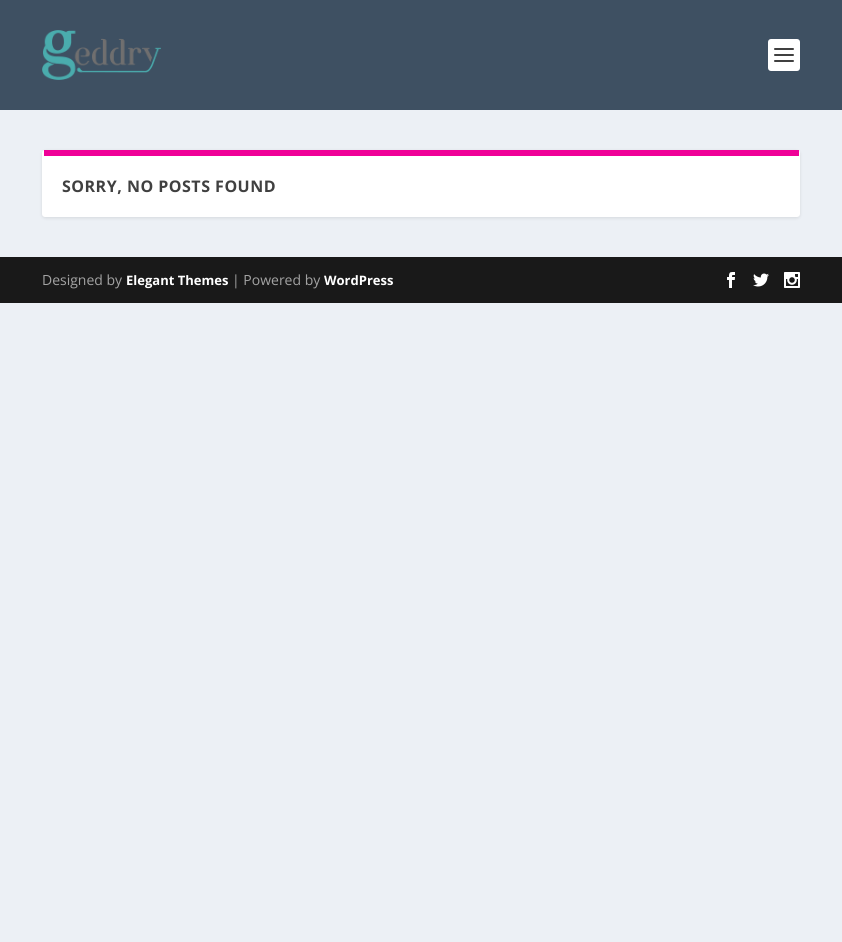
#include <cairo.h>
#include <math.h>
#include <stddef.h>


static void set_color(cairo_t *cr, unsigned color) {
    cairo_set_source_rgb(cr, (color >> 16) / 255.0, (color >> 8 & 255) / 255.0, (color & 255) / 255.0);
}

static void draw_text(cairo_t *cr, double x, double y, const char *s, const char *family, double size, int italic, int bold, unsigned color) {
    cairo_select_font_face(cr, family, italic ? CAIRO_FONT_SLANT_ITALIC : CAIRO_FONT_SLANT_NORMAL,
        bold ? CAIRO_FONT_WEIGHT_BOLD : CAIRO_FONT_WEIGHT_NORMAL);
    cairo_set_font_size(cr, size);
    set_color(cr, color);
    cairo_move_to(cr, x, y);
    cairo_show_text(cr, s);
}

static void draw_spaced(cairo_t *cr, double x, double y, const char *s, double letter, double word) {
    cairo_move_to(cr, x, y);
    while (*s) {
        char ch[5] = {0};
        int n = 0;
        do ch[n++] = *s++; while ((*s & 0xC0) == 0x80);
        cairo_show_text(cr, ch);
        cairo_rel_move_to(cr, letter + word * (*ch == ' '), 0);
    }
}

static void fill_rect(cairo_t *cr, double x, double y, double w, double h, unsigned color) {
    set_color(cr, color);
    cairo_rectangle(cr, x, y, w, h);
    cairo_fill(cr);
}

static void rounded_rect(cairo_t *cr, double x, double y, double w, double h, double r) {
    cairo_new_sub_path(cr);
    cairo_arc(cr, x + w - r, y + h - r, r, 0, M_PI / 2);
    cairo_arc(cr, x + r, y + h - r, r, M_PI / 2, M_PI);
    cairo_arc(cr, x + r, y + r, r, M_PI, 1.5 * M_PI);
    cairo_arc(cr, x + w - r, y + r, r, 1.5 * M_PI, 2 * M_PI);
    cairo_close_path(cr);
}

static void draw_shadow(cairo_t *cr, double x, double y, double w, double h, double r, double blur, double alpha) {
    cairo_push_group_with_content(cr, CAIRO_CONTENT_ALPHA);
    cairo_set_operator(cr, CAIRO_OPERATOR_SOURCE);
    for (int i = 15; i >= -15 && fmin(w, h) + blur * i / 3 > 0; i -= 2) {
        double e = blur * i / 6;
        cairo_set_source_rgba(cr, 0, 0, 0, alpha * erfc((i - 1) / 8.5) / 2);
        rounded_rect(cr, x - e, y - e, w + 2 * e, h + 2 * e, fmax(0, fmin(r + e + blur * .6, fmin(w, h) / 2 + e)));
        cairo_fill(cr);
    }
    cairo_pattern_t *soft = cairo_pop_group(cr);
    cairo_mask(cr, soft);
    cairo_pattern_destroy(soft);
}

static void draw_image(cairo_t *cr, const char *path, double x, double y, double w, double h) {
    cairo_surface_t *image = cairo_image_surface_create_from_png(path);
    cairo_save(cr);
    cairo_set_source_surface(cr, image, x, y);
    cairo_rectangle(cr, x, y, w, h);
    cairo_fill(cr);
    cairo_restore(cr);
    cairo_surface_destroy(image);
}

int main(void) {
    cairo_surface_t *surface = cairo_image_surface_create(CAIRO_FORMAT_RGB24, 842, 942);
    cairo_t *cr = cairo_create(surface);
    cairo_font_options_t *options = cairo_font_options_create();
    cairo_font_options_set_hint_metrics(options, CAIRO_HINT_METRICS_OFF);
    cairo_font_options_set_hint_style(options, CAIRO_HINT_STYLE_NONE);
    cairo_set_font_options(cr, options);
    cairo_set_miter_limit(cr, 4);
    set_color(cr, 0xECF0F5);
    cairo_paint(cr);
    fill_rect(cr, 0, 0, 842, 110, 0x3E5062);
    draw_image(cr, "assets/img1.png", 42, 30, 119, 50);
    set_color(cr, 0xFFFFFF);
    rounded_rect(cr, 768, 39, 32, 32, 3);
    cairo_fill(cr);
    set_color(cr, 0x404040);
    rounded_rect(cr, 774, 48, 20, 2, 1);
    cairo_fill(cr);
    rounded_rect(cr, 774, 54, 20, 2, 1);
    cairo_fill(cr);
    rounded_rect(cr, 774, 60, 20, 2, 1);
    cairo_fill(cr);
    set_color(cr, 0x000000);
    draw_shadow(cr, 42, 151, 758, 67, 3, 1.5, 0.1);
    set_color(cr, 0xFFFFFF);
    rounded_rect(cr, 42, 150, 758, 67, 3);
    cairo_fill(cr);
    fill_rect(cr, 44, 150, 755, 6, 0xEF0097);
    cairo_select_font_face(cr, "Open Sans", CAIRO_FONT_SLANT_NORMAL, CAIRO_FONT_WEIGHT_BOLD);
    cairo_set_font_size(cr, 16);
    set_color(cr, 0x404040);
    draw_spaced(cr, 62, 192, "SORRY, NO POSTS FOUND", 0.5, 0);
    fill_rect(cr, 0, 257, 842, 46, 0x191919);
    draw_text(cr, 42, 285, "Designed by", "Open Sans", 14, 0, 0, 0xA3A3A3);
    draw_text(cr, 126, 285, "Elegant Themes", "Open Sans", 13, 0, 1, 0xFFFFFF);
    draw_text(cr, 232, 285, "| Powered by", "Open Sans", 14, 0, 0, 0xA3A3A3);
    draw_text(cr, 324, 285, "WordPress", "Open Sans", 13, 0, 1, 0xFFFFFF);
    draw_image(cr, "assets/img2.png", 727, 272, 8, 16);
    draw_image(cr, "assets/img3.png", 753, 273, 16, 14);
    draw_image(cr, "assets/img4.png", 784, 272, 16, 16);
    cairo_surface_write_to_png(surface, "output.png");
    cairo_font_options_destroy(options);
    cairo_destroy(cr);
    cairo_surface_destroy(surface);
    return 0;
}
